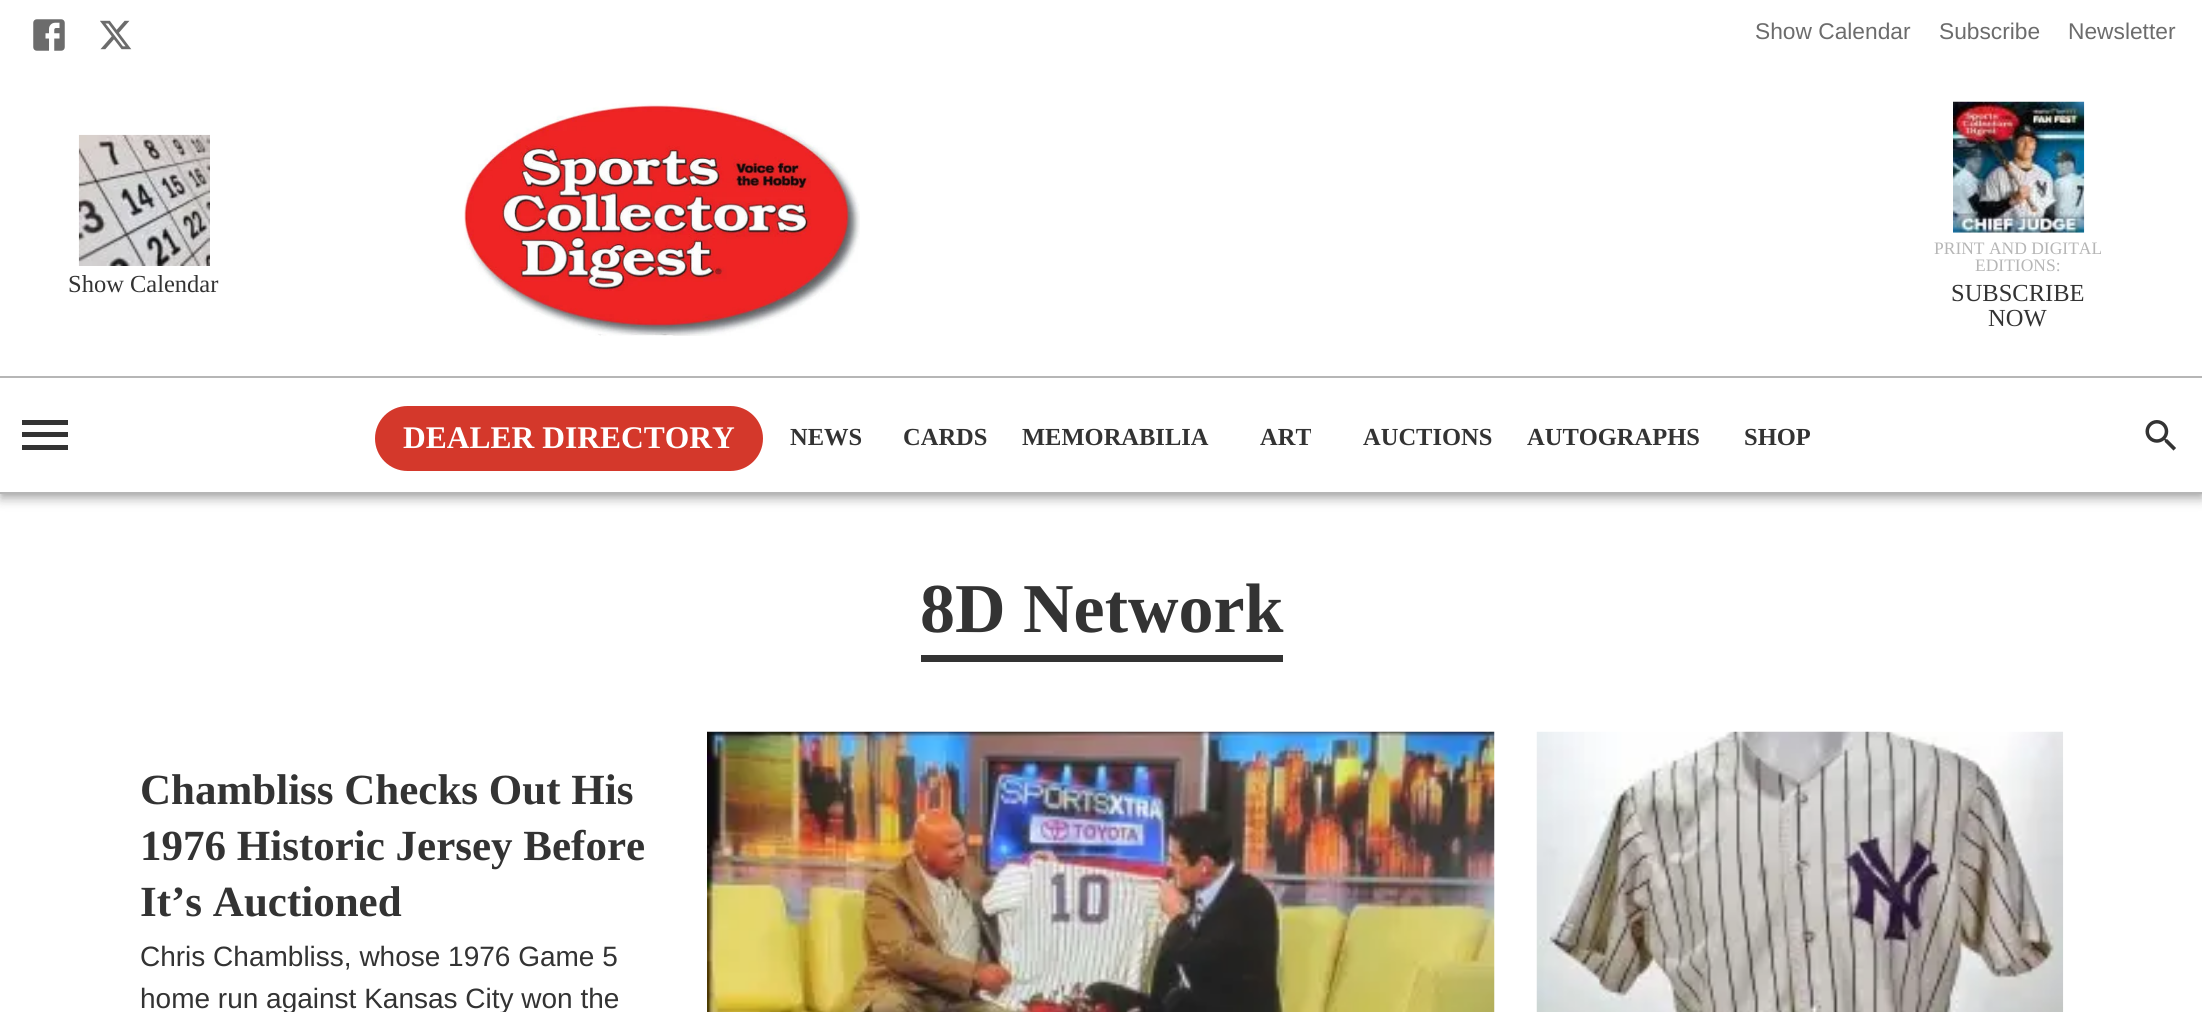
#include <cairo.h>
#include <math.h>
#include <stddef.h>


static void set_color(cairo_t *cr, unsigned color) {
    cairo_set_source_rgb(cr, (color >> 16) / 255.0, (color >> 8 & 255) / 255.0, (color & 255) / 255.0);
}

static void draw_text(cairo_t *cr, double x, double y, const char *s, const char *family, double size, int italic, int bold, unsigned color) {
    cairo_select_font_face(cr, family, italic ? CAIRO_FONT_SLANT_ITALIC : CAIRO_FONT_SLANT_NORMAL,
        bold ? CAIRO_FONT_WEIGHT_BOLD : CAIRO_FONT_WEIGHT_NORMAL);
    cairo_set_font_size(cr, size);
    set_color(cr, color);
    cairo_move_to(cr, x, y);
    cairo_show_text(cr, s);
}

static void fill_rect(cairo_t *cr, double x, double y, double w, double h, unsigned color) {
    set_color(cr, color);
    cairo_rectangle(cr, x, y, w, h);
    cairo_fill(cr);
}

static void rounded_rect(cairo_t *cr, double x, double y, double w, double h, double r) {
    cairo_new_sub_path(cr);
    cairo_arc(cr, x + w - r, y + h - r, r, 0, M_PI / 2);
    cairo_arc(cr, x + r, y + h - r, r, M_PI / 2, M_PI);
    cairo_arc(cr, x + r, y + r, r, M_PI, 1.5 * M_PI);
    cairo_arc(cr, x + w - r, y + r, r, 1.5 * M_PI, 2 * M_PI);
    cairo_close_path(cr);
}

static void draw_shadow(cairo_t *cr, double x, double y, double w, double h, double r, double blur, double alpha) {
    cairo_push_group_with_content(cr, CAIRO_CONTENT_ALPHA);
    cairo_set_operator(cr, CAIRO_OPERATOR_SOURCE);
    for (int i = 15; i >= -15 && fmin(w, h) + blur * i / 3 > 0; i -= 2) {
        double e = blur * i / 6;
        cairo_set_source_rgba(cr, 0, 0, 0, alpha * erfc((i - 1) / 8.5) / 2);
        rounded_rect(cr, x - e, y - e, w + 2 * e, h + 2 * e, fmax(0, fmin(r + e + blur * .6, fmin(w, h) / 2 + e)));
        cairo_fill(cr);
    }
    cairo_pattern_t *soft = cairo_pop_group(cr);
    cairo_mask(cr, soft);
    cairo_pattern_destroy(soft);
}

static void draw_image(cairo_t *cr, const char *path, double x, double y, double w, double h) {
    cairo_surface_t *image = cairo_image_surface_create_from_png(path);
    cairo_save(cr);
    cairo_set_source_surface(cr, image, x, y);
    cairo_rectangle(cr, x, y, w, h);
    cairo_fill(cr);
    cairo_restore(cr);
    cairo_surface_destroy(image);
}

int main(void) {
    cairo_surface_t *surface = cairo_image_surface_create(CAIRO_FORMAT_RGB24, 2202, 1012);
    cairo_t *cr = cairo_create(surface);
    cairo_font_options_t *options = cairo_font_options_create();
    cairo_font_options_set_hint_metrics(options, CAIRO_HINT_METRICS_OFF);
    cairo_font_options_set_hint_style(options, CAIRO_HINT_STYLE_NONE);
    cairo_set_font_options(cr, options);
    cairo_set_miter_limit(cr, 4);
    set_color(cr, 0xFFFFFF);
    cairo_paint(cr);
    set_color(cr, 0x000000);
    draw_shadow(cr, 0, 2, 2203, 493, 0, 9, 0.12);
    draw_shadow(cr, 0, 7, 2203, 494, 0, 4.5, 0.14);
    draw_shadow(cr, 2, 5, 2200, 490, 0, 3.5, 0.2);
    fill_rect(cr, 0, 0, 2202, 492, 0xFFFFFF);
    draw_image(cr, "assets/img1.png", 33, 19, 32, 32);
    draw_image(cr, "assets/img2.png", 100, 20, 32, 30);
    draw_text(cr, 1755, 39, "Show Calendar", "Liberation Sans", 22.75, 0, 0, 0x6C6C6C);
    draw_text(cr, 1939, 39, "Subscribe", "Liberation Sans", 22.75, 0, 0, 0x6C6C6C);
    draw_text(cr, 2068, 39, "Newsletter", "Liberation Sans", 22.75, 0, 0, 0x6C6C6C);
    draw_image(cr, "assets/img3.png", 78, 134, 132, 132);
    draw_text(cr, 68, 292, "Show Calendar", "Liberation Serif", 24.5, 0, 0, 0x333333);
    draw_image(cr, "assets/img4.png", 464, 103, 396, 233);
    draw_image(cr, "assets/img5.png", 1953, 101, 132, 132);
    draw_text(cr, 1934, 254, "PRINT AND DIGITAL", "Liberation Serif", 17.5, 0, 0, 0xB6B6B6);
    draw_text(cr, 1975, 271, "EDITIONS:", "Liberation Serif", 17.5, 0, 0, 0xB6B6B6);
    draw_text(cr, 1951, 301, "SUBSCRIBE", "Liberation Serif", 24.5, 0, 0, 0x333333);
    draw_text(cr, 1988, 326, "NOW", "Liberation Serif", 24.5, 0, 0, 0x333333);
    fill_rect(cr, 0, 376, 2202, 2, 0xB6B6B6);
    fill_rect(cr, 0, 492, 2202, 2, 0xB6B6B6);
    set_color(cr, 0x333333);
    cairo_new_path(cr);
    cairo_move_to(cr, 22, 450);
    cairo_line_to(cr, 68, 450);
    cairo_line_to(cr, 68, 445);
    cairo_line_to(cr, 22, 445);
    cairo_close_path(cr);
    cairo_move_to(cr, 22, 437);
    cairo_line_to(cr, 68, 437);
    cairo_line_to(cr, 68, 432);
    cairo_line_to(cr, 22, 432);
    cairo_close_path(cr);
    cairo_move_to(cr, 22, 420);
    cairo_line_to(cr, 22, 425);
    cairo_line_to(cr, 68, 425);
    cairo_line_to(cr, 68, 420);
    cairo_close_path(cr);
    cairo_fill(cr);
    set_color(cr, 0xD4382B);
    rounded_rect(cr, 375, 406, 388, 65, 32.5);
    cairo_fill(cr);
    draw_text(cr, 403, 448, "DEALER DIRECTORY", "Liberation Serif", 31.5, 0, 1, 0xFFFFFF);
    draw_text(cr, 790, 445, "NEWS", "Liberation Serif", 24.5, 0, 1, 0x333333);
    draw_text(cr, 903, 445, "CARDS", "Liberation Serif", 24.5, 0, 1, 0x333333);
    draw_text(cr, 1022, 445, "MEMORABILIA", "Liberation Serif", 24.5, 0, 1, 0x333333);
    draw_text(cr, 1260, 445, "ART", "Liberation Serif", 24.5, 0, 1, 0x333333);
    draw_text(cr, 1363, 445, "AUCTIONS", "Liberation Serif", 24.5, 0, 1, 0x333333);
    draw_text(cr, 1527, 445, "AUTOGRAPHS", "Liberation Serif", 24.5, 0, 1, 0x333333);
    draw_text(cr, 1744, 445, "SHOP", "Liberation Serif", 24.5, 0, 1, 0x333333);
    draw_image(cr, "assets/img6.png", 2145, 420, 31, 31);
    fill_rect(cr, 921, 655, 362, 7, 0x333333);
    draw_text(cr, 920, 632, "8D Network", "Liberation Serif", 70, 0, 1, 0x333333);
    draw_text(cr, 140, 804, "Chambliss Checks Out His", "Liberation Serif", 43, 0, 1, 0x333333);
    draw_text(cr, 140, 860, "1976 Historic Jersey Before", "Liberation Serif", 43, 0, 1, 0x333333);
    draw_text(cr, 140, 916, "It’s Auctioned", "Liberation Serif", 43, 0, 1, 0x333333);
    draw_text(cr, 140, 966, "Chris Chambliss, whose 1976 Game 5", "Liberation Sans", 28, 0, 0, 0x333333);
    draw_text(cr, 140, 1008, "home run against Kansas City won the", "Liberation Sans", 28, 0, 0, 0x333333);
    draw_image(cr, "assets/img7.png", 707, 731, 788, 281);
    draw_image(cr, "assets/img8.png", 1536, 731, 528, 281);
    cairo_surface_write_to_png(surface, "output.png");
    cairo_font_options_destroy(options);
    cairo_destroy(cr);
    cairo_surface_destroy(surface);
    return 0;
}
